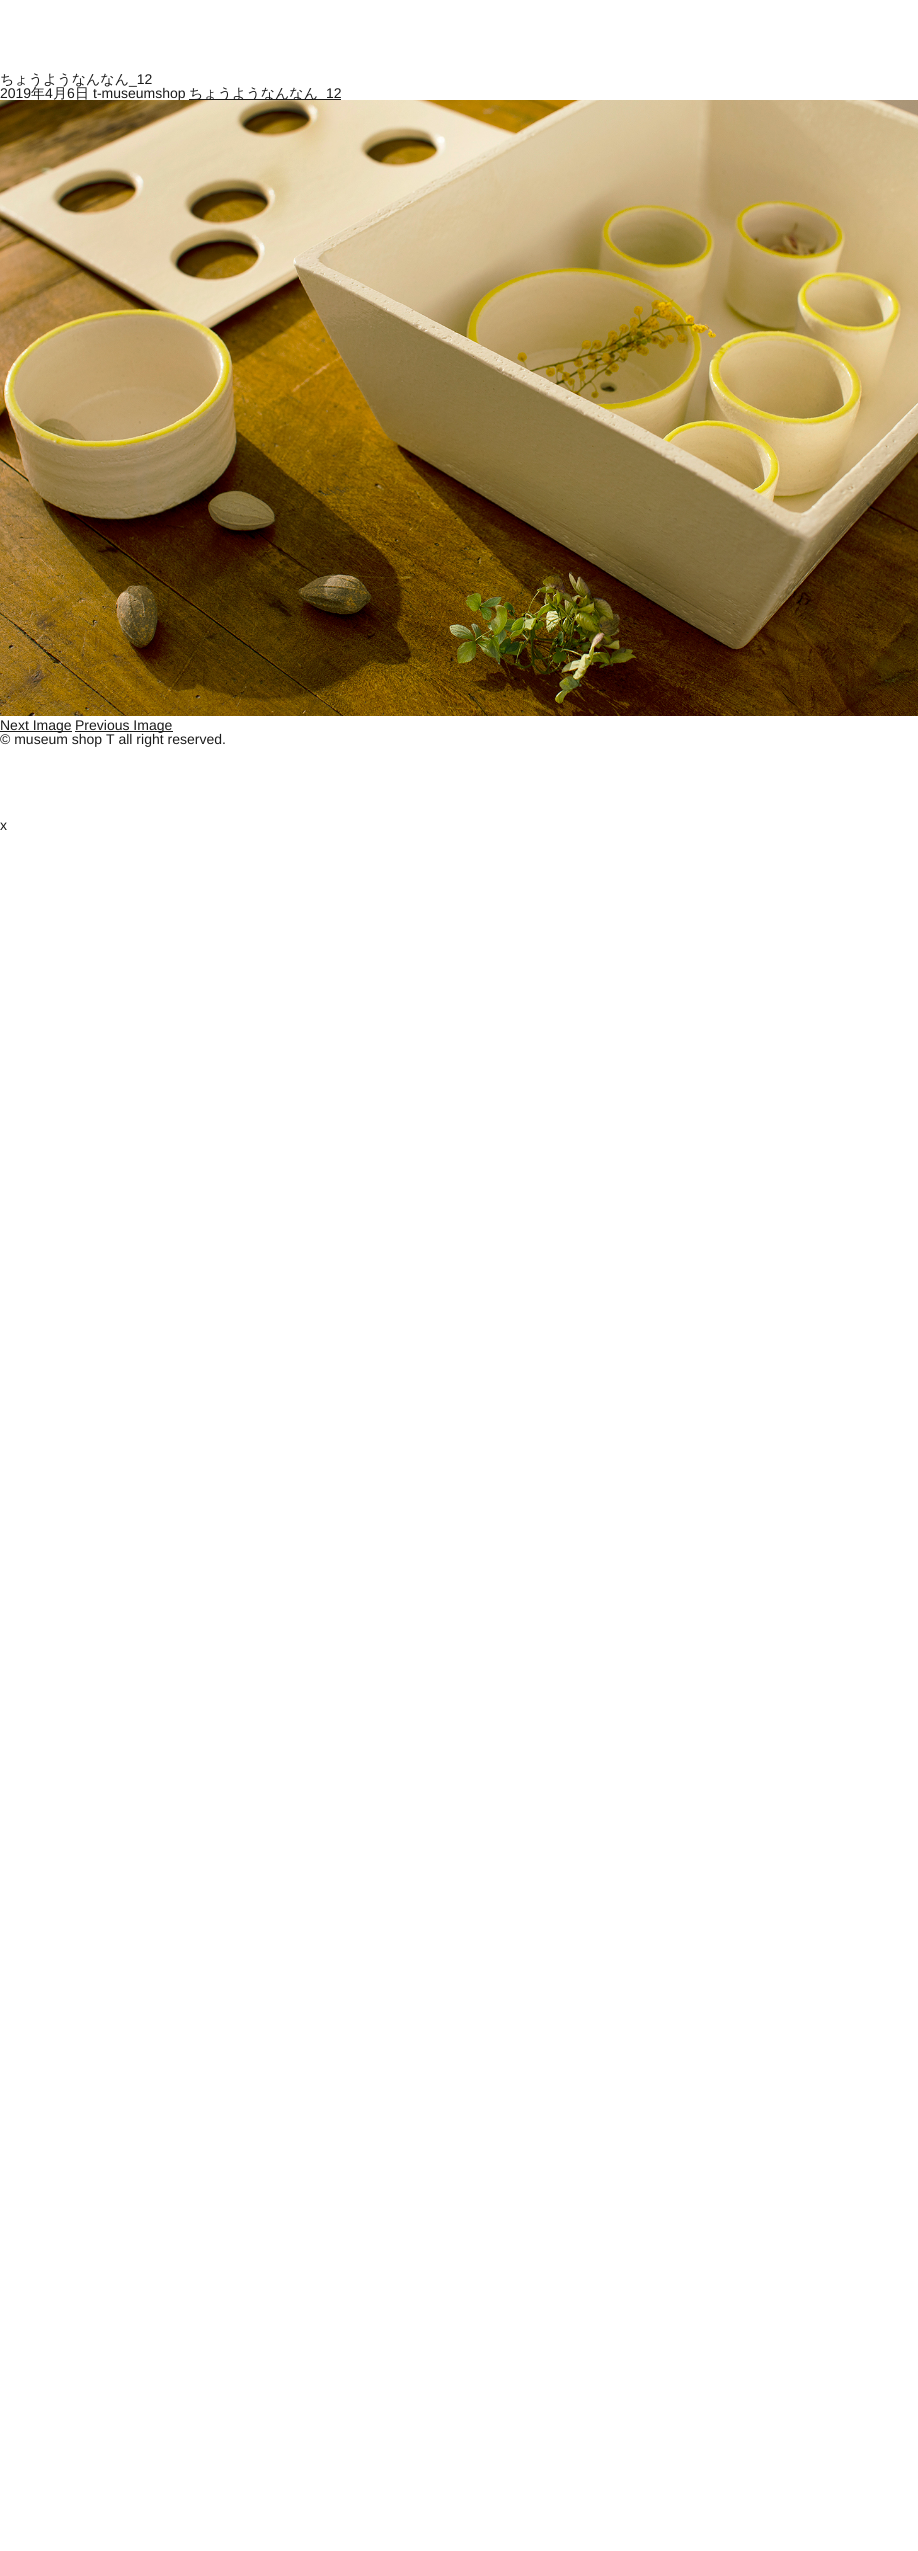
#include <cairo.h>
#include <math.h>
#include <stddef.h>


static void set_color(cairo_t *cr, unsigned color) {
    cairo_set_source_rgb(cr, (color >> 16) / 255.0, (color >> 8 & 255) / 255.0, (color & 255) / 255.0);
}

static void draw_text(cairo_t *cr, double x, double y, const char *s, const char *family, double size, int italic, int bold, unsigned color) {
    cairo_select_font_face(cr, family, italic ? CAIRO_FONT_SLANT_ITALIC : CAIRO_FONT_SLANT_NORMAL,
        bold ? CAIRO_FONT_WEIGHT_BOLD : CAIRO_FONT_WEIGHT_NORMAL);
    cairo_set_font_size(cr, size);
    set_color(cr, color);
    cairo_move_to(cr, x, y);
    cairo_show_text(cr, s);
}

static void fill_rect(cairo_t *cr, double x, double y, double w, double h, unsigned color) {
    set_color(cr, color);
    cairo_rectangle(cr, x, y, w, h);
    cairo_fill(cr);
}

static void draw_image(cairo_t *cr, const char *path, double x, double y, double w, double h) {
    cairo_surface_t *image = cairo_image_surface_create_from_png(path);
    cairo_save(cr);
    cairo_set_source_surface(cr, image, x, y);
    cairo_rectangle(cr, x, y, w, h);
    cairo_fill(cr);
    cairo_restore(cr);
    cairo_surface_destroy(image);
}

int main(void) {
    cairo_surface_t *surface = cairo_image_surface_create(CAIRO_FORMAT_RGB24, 918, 2551);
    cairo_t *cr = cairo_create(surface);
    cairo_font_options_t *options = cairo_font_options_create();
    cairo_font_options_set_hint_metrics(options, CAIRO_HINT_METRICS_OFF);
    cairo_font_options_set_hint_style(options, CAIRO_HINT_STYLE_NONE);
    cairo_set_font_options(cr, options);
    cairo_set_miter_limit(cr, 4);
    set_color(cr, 0xFFFFFF);
    cairo_paint(cr);
    draw_text(cr, 0, 84, "ちょうようなんなん", "WenQuanYi Zen Hei Medium", 14, 0, 0, 0x1B1B1B);
    draw_text(cr, 129, 84, "_12", "Liberation Sans", 14, 0, 0, 0x1B1B1B);
    draw_text(cr, 0, 98, "2019", "Liberation Sans", 14, 0, 0, 0x1B1B1B);
    draw_text(cr, 31, 98, "年", "WenQuanYi Zen Hei Medium", 14, 0, 0, 0x1B1B1B);
    draw_text(cr, 45, 98, "4", "Liberation Sans", 14, 0, 0, 0x1B1B1B);
    draw_text(cr, 53, 98, "月", "WenQuanYi Zen Hei Medium", 14, 0, 0, 0x1B1B1B);
    draw_text(cr, 67, 98, "6", "Liberation Sans", 14, 0, 0, 0x1B1B1B);
    draw_text(cr, 75, 98, "日", "WenQuanYi Zen Hei Medium", 14, 0, 0, 0x1B1B1B);
    draw_text(cr, 93, 98, "t-museumshop", "Liberation Sans", 14, 0, 0, 0x1B1B1B);
    fill_rect(cr, 189, 99, 152, 1, 0x1B1B1B);
    draw_text(cr, 189, 98, "ちょうようなんなん", "WenQuanYi Zen Hei Medium", 14, 0, 0, 0x1B1B1B);
    draw_text(cr, 326, 98, "12", "Liberation Sans", 14, 0, 0, 0x1B1B1B);
    draw_image(cr, "assets/img1.png", 0, 100, 918, 616);
    fill_rect(cr, 0, 731, 72, 1, 0x1B1B1B);
    draw_text(cr, 0, 730, "Next Image", "Liberation Sans", 14, 0, 0, 0x1B1B1B);
    fill_rect(cr, 75, 731, 98, 1, 0x1B1B1B);
    draw_text(cr, 75, 730, "Previous Image", "Liberation Sans", 14, 0, 0, 0x1B1B1B);
    draw_text(cr, 0, 744, "© museum shop T all right reserved.", "Liberation Sans", 14, 0, 0, 0x1B1B1B);
    draw_text(cr, 0, 830, "x", "Liberation Sans", 14, 0, 0, 0x1B1B1B);
    cairo_surface_write_to_png(surface, "output.png");
    cairo_font_options_destroy(options);
    cairo_destroy(cr);
    cairo_surface_destroy(surface);
    return 0;
}
